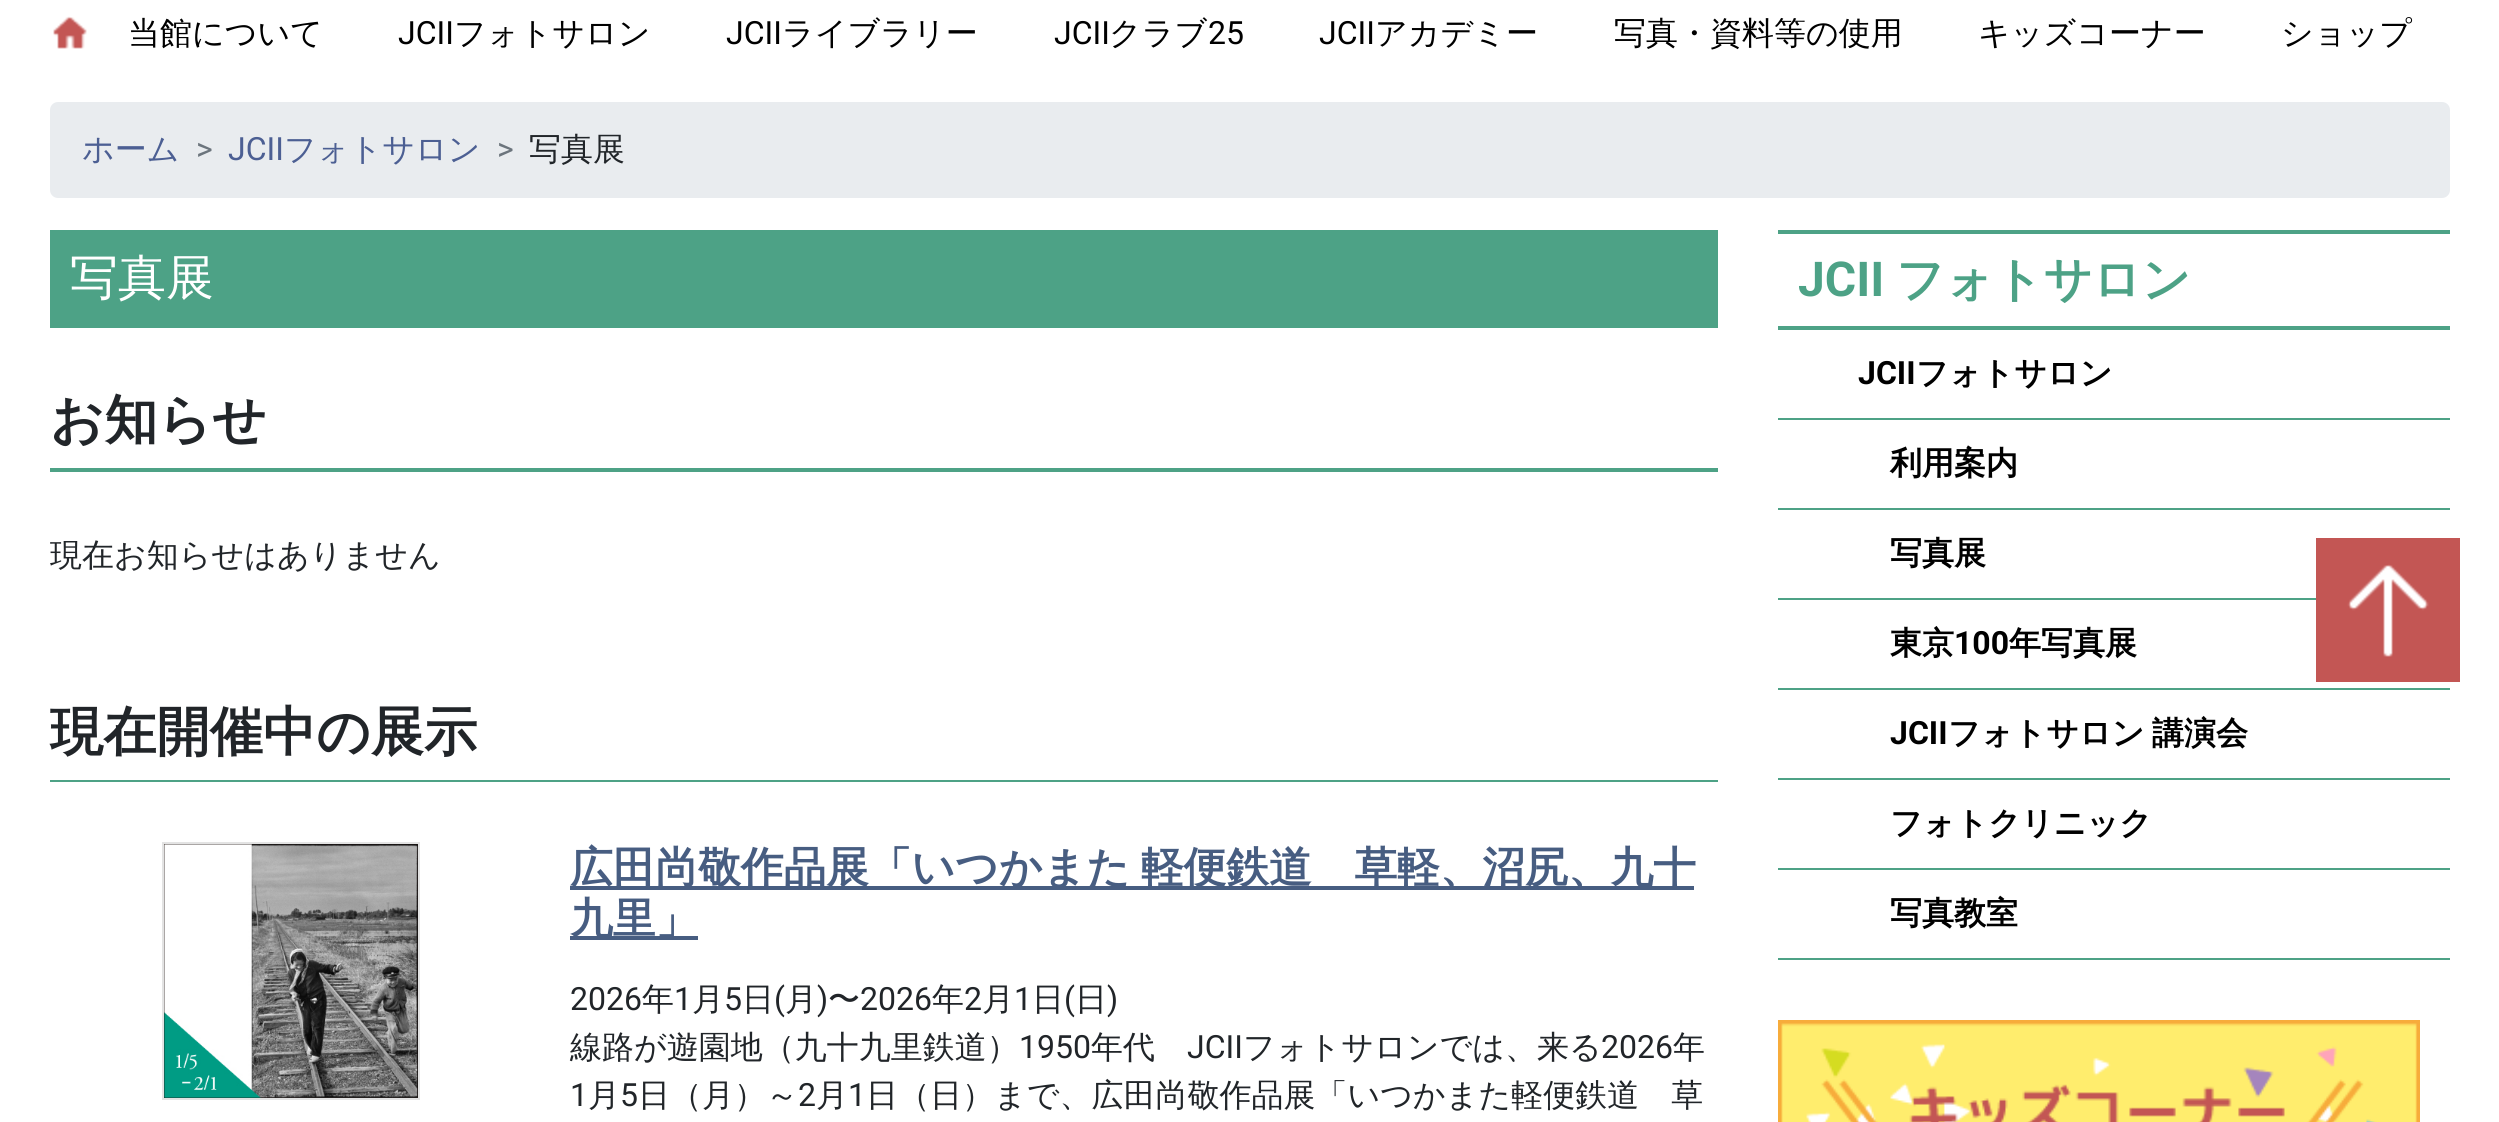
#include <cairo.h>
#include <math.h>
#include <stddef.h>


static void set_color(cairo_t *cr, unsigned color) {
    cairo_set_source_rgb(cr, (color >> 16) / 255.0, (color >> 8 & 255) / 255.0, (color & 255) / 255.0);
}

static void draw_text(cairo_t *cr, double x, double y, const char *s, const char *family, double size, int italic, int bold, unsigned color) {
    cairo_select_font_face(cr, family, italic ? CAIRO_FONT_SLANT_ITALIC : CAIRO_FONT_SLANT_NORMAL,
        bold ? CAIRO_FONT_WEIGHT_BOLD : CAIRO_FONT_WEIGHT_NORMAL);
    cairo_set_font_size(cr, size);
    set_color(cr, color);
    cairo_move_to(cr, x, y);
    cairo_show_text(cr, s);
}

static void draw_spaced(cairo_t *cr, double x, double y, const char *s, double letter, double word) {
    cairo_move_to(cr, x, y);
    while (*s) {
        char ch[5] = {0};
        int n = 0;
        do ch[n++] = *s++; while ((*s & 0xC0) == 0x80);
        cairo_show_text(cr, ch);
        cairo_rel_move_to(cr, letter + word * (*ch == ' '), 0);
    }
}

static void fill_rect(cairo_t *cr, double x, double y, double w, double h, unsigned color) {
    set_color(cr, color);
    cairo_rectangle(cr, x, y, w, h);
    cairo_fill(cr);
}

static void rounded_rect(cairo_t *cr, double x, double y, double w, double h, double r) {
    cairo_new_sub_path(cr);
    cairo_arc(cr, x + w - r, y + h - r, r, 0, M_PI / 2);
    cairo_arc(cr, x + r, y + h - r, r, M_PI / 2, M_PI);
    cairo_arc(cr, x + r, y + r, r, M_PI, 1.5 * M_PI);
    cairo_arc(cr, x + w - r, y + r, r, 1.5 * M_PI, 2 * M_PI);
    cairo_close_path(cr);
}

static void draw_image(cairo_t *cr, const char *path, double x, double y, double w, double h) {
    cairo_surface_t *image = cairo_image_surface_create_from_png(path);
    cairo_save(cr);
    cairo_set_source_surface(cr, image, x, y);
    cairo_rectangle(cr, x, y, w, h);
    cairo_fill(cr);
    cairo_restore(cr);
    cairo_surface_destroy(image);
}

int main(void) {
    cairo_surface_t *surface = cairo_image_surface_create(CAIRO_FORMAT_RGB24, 2499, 1122);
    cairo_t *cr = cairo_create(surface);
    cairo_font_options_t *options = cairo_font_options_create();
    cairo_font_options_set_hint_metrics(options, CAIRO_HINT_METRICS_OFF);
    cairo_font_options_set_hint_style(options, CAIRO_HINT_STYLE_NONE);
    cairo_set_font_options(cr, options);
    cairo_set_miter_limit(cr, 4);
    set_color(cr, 0xFFFFFF);
    cairo_paint(cr);
    draw_image(cr, "assets/img1.png", 53, 16, 34, 33);
    draw_text(cr, 128, 44, "当館について", "WenQuanYi Zen Hei Medium", 32, 0, 0, 0x000000);
    draw_text(cr, 398, 44, "JCII", "Roboto", 32, 0, 0, 0x000000);
    draw_text(cr, 454, 44, "フォトサロン", "WenQuanYi Zen Hei Medium", 32, 0, 0, 0x000000);
    draw_text(cr, 726, 44, "JCII", "Roboto", 32, 0, 0, 0x000000);
    draw_text(cr, 782, 44, "ライブラリー", "WenQuanYi Zen Hei Medium", 32, 0, 0, 0x000000);
    draw_text(cr, 1054, 44, "JCII", "Roboto", 32, 0, 0, 0x000000);
    draw_text(cr, 1109, 44, "クラブ", "WenQuanYi Zen Hei Medium", 32, 0, 0, 0x000000);
    draw_text(cr, 1208, 44, "25", "Roboto", 32, 0, 0, 0x000000);
    draw_text(cr, 1319, 44, "JCII", "Roboto", 32, 0, 0, 0x000000);
    draw_text(cr, 1375, 44, "アカデミー", "WenQuanYi Zen Hei Medium", 32, 0, 0, 0x000000);
    draw_text(cr, 1614, 44, "写真・資料等の使用", "WenQuanYi Zen Hei Medium", 32, 0, 0, 0x000000);
    draw_text(cr, 1978, 44, "キッズコーナー", "WenQuanYi Zen Hei Medium", 32, 0, 0, 0x000000);
    draw_text(cr, 2281, 44, "ショップ", "WenQuanYi Zen Hei Medium", 32, 0, 0, 0x000000);
    set_color(cr, 0xE9ECEF);
    rounded_rect(cr, 50, 102, 2400, 96, 8);
    cairo_fill(cr);
    draw_text(cr, 82, 160, "ホーム", "WenQuanYi Zen Hei Medium", 32, 0, 0, 0x4C5F93);
    draw_text(cr, 196, 160, ">", "Roboto", 32, 0, 0, 0x6C757D);
    draw_text(cr, 228, 160, "JCII", "Roboto", 32, 0, 0, 0x4C5F93);
    draw_text(cr, 284, 160, "フォトサロン", "WenQuanYi Zen Hei Medium", 32, 0, 0, 0x4C5F93);
    draw_text(cr, 497, 160, ">", "Roboto", 32, 0, 0, 0x6C757D);
    draw_text(cr, 529, 160, "写真展", "WenQuanYi Zen Hei Medium", 32, 0, 0, 0x212529);
    fill_rect(cr, 50, 230, 1668, 98, 0x4DA286);
    draw_text(cr, 70, 294, "写真展", "WenQuanYi Zen Hei Medium", 48, 0, 0, 0xFFFFFF);
    fill_rect(cr, 50, 468, 1668, 4, 0x4DA286);
    draw_text(cr, 50, 438, "お知らせ", "WenQuanYi Zen Hei", 53.25, 0, 1, 0x212529);
    draw_text(cr, 50, 566, "現在お知らせはありません", "WenQuanYi Zen Hei Medium", 32, 0, 0, 0x212529);
    fill_rect(cr, 50, 780, 1668, 2, 0x4DA286);
    draw_text(cr, 50, 750, "現在開催中の展示", "WenQuanYi Zen Hei", 53.25, 0, 1, 0x212529);
    cairo_rectangle(cr, 163, 843, 256, 256);
    set_color(cr, 0xE3E3E3);
    cairo_stroke(cr);
    draw_image(cr, "assets/img2.png", 164, 844, 254, 254);
    fill_rect(cr, 570, 886, 1124, 4, 0x475D81);
    cairo_set_font_size(cr, 42.7);
    draw_spaced(cr, 570, 882, "広田尚敬作品展「いつかまた 軽便鉄道　草軽、沼尻、九十", 0, -2);
    fill_rect(cr, 570, 936, 128, 4, 0x475D81);
    draw_text(cr, 570, 933, "九里」", "WenQuanYi Zen Hei", 42.7, 0, 1, 0x475D81);
    draw_text(cr, 570, 1010, "2026", "Roboto", 32, 0, 0, 0x212529);
    draw_text(cr, 642, 1010, "年", "WenQuanYi Zen Hei Medium", 32, 0, 0, 0x212529);
    draw_text(cr, 674, 1010, "1", "Roboto", 32, 0, 0, 0x212529);
    draw_text(cr, 692, 1010, "月", "WenQuanYi Zen Hei Medium", 32, 0, 0, 0x212529);
    draw_text(cr, 724, 1010, "5", "Roboto", 32, 0, 0, 0x212529);
    draw_text(cr, 742, 1010, "日", "WenQuanYi Zen Hei Medium", 32, 0, 0, 0x212529);
    draw_text(cr, 774, 1010, "(", "Roboto", 32, 0, 0, 0x212529);
    draw_text(cr, 785, 1010, "月", "WenQuanYi Zen Hei Medium", 32, 0, 0, 0x212529);
    draw_text(cr, 817, 1010, ")", "Roboto", 32, 0, 0, 0x212529);
    draw_text(cr, 828, 1010, "〜", "WenQuanYi Zen Hei Medium", 32, 0, 0, 0x212529);
    draw_text(cr, 860, 1010, "2026", "Roboto", 32, 0, 0, 0x212529);
    draw_text(cr, 932, 1010, "年", "WenQuanYi Zen Hei Medium", 32, 0, 0, 0x212529);
    draw_text(cr, 964, 1010, "2", "Roboto", 32, 0, 0, 0x212529);
    draw_text(cr, 982, 1010, "月", "WenQuanYi Zen Hei Medium", 32, 0, 0, 0x212529);
    draw_text(cr, 1014, 1010, "1", "Roboto", 32, 0, 0, 0x212529);
    draw_text(cr, 1032, 1010, "日", "WenQuanYi Zen Hei Medium", 32, 0, 0, 0x212529);
    draw_text(cr, 1064, 1010, "(", "Roboto", 32, 0, 0, 0x212529);
    draw_text(cr, 1075, 1010, "日", "WenQuanYi Zen Hei Medium", 32, 0, 0, 0x212529);
    draw_text(cr, 1107, 1010, ")", "Roboto", 32, 0, 0, 0x212529);
    draw_text(cr, 570, 1058, "線路が遊園地（九十九里鉄道）", "WenQuanYi Zen Hei Medium", 32, 0, 0, 0x212529);
    draw_text(cr, 1019, 1058, "1950", "Roboto", 32, 0, 0, 0x212529);
    draw_text(cr, 1091, 1058, "年代", "WenQuanYi Zen Hei Medium", 32, 0, 0, 0x212529);
    draw_text(cr, 1187, 1058, "JCII", "Roboto", 32, 0, 0, 0x212529);
    draw_text(cr, 1243, 1058, "フォトサロンでは、来る", "WenQuanYi Zen Hei Medium", 32, 0, 0, 0x212529);
    draw_text(cr, 1601, 1058, "2026", "Roboto", 32, 0, 0, 0x212529);
    draw_text(cr, 1673, 1058, "年", "WenQuanYi Zen Hei Medium", 32, 0, 0, 0x212529);
    draw_text(cr, 570, 1106, "1", "Roboto", 32, 0, 0, 0x212529);
    draw_text(cr, 588, 1106, "月", "WenQuanYi Zen Hei Medium", 32, 0, 0, 0x212529);
    draw_text(cr, 620, 1106, "5", "Roboto", 32, 0, 0, 0x212529);
    draw_text(cr, 638, 1106, "日（月）～", "WenQuanYi Zen Hei Medium", 32, 0, 0, 0x212529);
    draw_text(cr, 798, 1106, "2", "Roboto", 32, 0, 0, 0x212529);
    draw_text(cr, 816, 1106, "月", "WenQuanYi Zen Hei Medium", 32, 0, 0, 0x212529);
    draw_text(cr, 848, 1106, "1", "Roboto", 32, 0, 0, 0x212529);
    draw_text(cr, 866, 1106, "日（日）まで、広田尚敬作品展「いつかまた軽便鉄道　草", "WenQuanYi Zen Hei Medium", 32, 0, 0, 0x212529);
    fill_rect(cr, 1778, 230, 672, 4, 0x4DA286);
    fill_rect(cr, 1778, 326, 672, 4, 0x4DA286);
    draw_text(cr, 1798, 296, "JCII", "Roboto", 48, 0, 1, 0x4DA286);
    draw_text(cr, 1896, 296, "フォトサロン", "WenQuanYi Zen Hei", 48, 0, 1, 0x4DA286);
    fill_rect(cr, 1778, 418, 672, 2, 0x4DA286);
    draw_text(cr, 1858, 384, "JCII", "Roboto", 32, 0, 1, 0x000000);
    draw_text(cr, 1916, 384, "フォトサロン", "WenQuanYi Zen Hei", 32, 0, 1, 0x000000);
    fill_rect(cr, 1778, 508, 672, 2, 0x4DA286);
    draw_text(cr, 1890, 474, "利用案内", "WenQuanYi Zen Hei", 32, 0, 1, 0x000000);
    fill_rect(cr, 1778, 598, 538, 2, 0x4DA286);
    draw_text(cr, 1890, 564, "写真展", "WenQuanYi Zen Hei", 32, 0, 1, 0x000000);
    fill_rect(cr, 1778, 688, 672, 2, 0x4DA286);
    draw_text(cr, 1890, 654, "東京", "WenQuanYi Zen Hei", 32, 0, 1, 0x000000);
    draw_text(cr, 1954, 654, "100", "Roboto", 32, 0, 1, 0x000000);
    draw_text(cr, 2009, 654, "年写真展", "WenQuanYi Zen Hei", 32, 0, 1, 0x000000);
    fill_rect(cr, 1778, 778, 672, 2, 0x4DA286);
    draw_text(cr, 1890, 744, "JCII", "Roboto", 32, 0, 1, 0x000000);
    cairo_select_font_face(cr, "WenQuanYi Zen Hei", CAIRO_FONT_SLANT_NORMAL, CAIRO_FONT_WEIGHT_BOLD);
    draw_spaced(cr, 1948, 744, "フォトサロン 講演会", 0, -2);
    fill_rect(cr, 1778, 868, 672, 2, 0x4DA286);
    draw_text(cr, 1890, 834, "フォトクリニック", "WenQuanYi Zen Hei", 32, 0, 1, 0x000000);
    fill_rect(cr, 1778, 958, 672, 2, 0x4DA286);
    draw_text(cr, 1890, 924, "写真教室", "WenQuanYi Zen Hei", 32, 0, 1, 0x000000);
    draw_image(cr, "assets/img3.png", 1778, 1020, 642, 102);
    fill_rect(cr, 2316, 538, 144, 144, 0xC35654);
    draw_image(cr, "assets/img4.png", 2347, 564, 82, 93);
    cairo_surface_write_to_png(surface, "output.png");
    cairo_font_options_destroy(options);
    cairo_destroy(cr);
    cairo_surface_destroy(surface);
    return 0;
}
